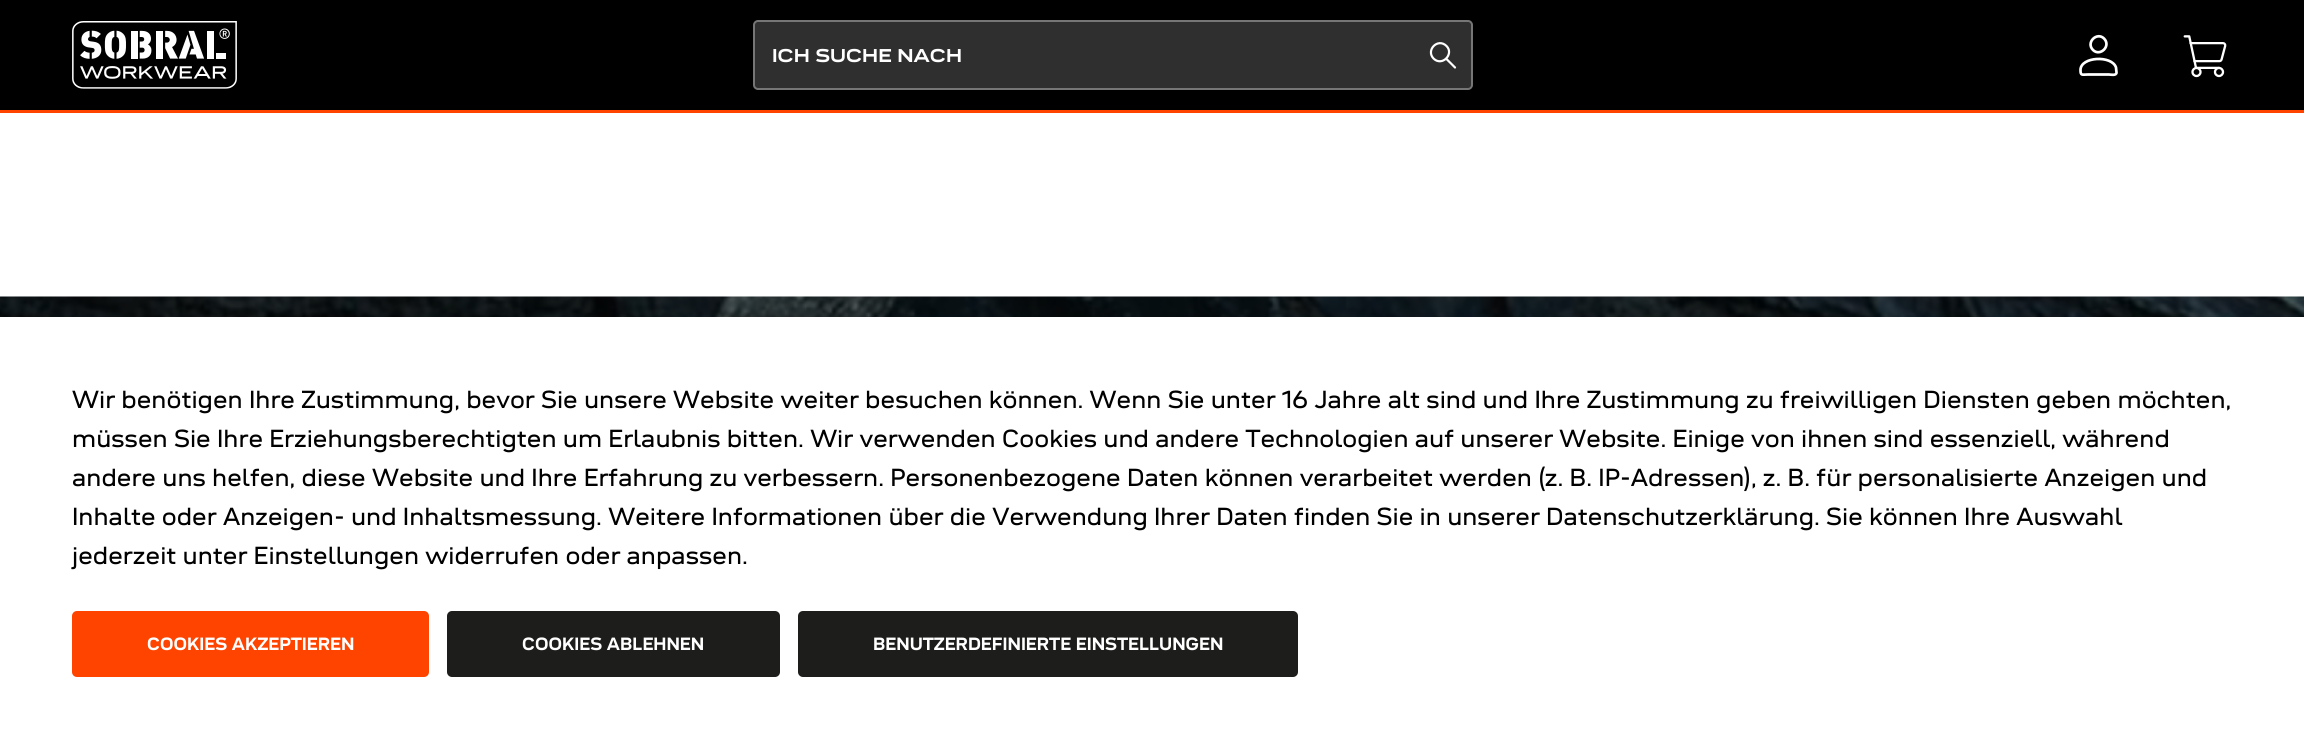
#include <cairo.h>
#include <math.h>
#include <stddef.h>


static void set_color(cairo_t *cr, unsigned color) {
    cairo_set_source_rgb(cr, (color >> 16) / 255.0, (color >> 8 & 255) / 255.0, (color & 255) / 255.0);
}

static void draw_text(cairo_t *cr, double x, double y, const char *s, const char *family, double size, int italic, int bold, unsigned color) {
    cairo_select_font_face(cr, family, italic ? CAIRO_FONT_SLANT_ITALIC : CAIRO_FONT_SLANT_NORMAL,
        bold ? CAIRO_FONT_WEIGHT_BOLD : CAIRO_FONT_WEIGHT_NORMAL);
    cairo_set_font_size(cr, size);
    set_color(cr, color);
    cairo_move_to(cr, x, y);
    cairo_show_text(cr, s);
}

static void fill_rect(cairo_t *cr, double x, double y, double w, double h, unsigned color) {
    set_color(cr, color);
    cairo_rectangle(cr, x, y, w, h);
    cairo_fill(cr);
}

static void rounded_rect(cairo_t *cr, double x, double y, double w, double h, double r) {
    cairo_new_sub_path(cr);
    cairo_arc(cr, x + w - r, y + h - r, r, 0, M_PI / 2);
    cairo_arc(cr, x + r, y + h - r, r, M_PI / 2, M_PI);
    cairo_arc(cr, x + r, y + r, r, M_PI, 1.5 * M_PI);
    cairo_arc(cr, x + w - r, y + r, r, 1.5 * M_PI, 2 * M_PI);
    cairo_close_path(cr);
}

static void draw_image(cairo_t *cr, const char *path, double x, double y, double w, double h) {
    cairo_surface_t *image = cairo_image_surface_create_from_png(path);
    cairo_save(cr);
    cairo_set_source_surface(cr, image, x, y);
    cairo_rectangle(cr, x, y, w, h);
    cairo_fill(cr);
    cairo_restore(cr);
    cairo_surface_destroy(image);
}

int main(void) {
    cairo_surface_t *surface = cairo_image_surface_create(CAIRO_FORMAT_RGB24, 2304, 739);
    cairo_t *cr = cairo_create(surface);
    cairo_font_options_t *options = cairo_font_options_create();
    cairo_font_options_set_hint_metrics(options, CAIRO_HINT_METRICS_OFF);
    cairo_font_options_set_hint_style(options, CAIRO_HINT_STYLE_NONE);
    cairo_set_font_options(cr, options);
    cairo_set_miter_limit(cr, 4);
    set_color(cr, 0xFFFFFF);
    cairo_paint(cr);
    fill_rect(cr, 0, 0, 2304, 110, 0x000000);
    fill_rect(cr, 0, 110, 2304, 3, 0xFF4400);
    draw_image(cr, "assets/img1.png", 72, 21, 165, 68);
    set_color(cr, 0x2F2F2F);
    rounded_rect(cr, 754, 21, 718, 68, 4);
    cairo_fill_preserve(cr);
    set_color(cr, 0x767676);
    cairo_stroke(cr);
    draw_text(cr, 772, 62, "ICH SUCHE NACH", "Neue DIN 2", 18, 0, 1, 0xFFFFFF);
    cairo_new_path(cr);
    cairo_move_to(cr, 1446.5, 46);
    cairo_curve_to(cr, 1454.5, 54, 1442, 67, 1433.5, 58.5);
    cairo_curve_to(cr, 1425.5, 50, 1438, 37.5, 1446.5, 46);
    cairo_move_to(cr, 1446, 58.5);
    cairo_line_to(cr, 1455, 67.5);
    cairo_set_line_width(cr, 2.2);
    cairo_set_line_cap(cr, CAIRO_LINE_CAP_ROUND);
    cairo_set_line_join(cr, CAIRO_LINE_JOIN_ROUND);
    cairo_stroke(cr);
    cairo_new_path(cr);
    cairo_move_to(cr, 2104, 38.5);
    cairo_curve_to(cr, 2111.5, 46, 2100, 57, 2093, 50);
    cairo_curve_to(cr, 2085.5, 42.5, 2097, 31.5, 2104, 38.5);
    cairo_move_to(cr, 2080.5, 70);
    cairo_curve_to(cr, 2080.5, 76, 2082, 74.5, 2088, 74.5);
    cairo_line_to(cr, 2109, 74.5);
    cairo_curve_to(cr, 2110.5, 74.5, 2116.5, 76, 2116.5, 72.5);
    cairo_line_to(cr, 2116, 67.5);
    cairo_curve_to(cr, 2112, 55, 2080.5, 56.5, 2080.5, 70);
    cairo_close_path(cr);
    cairo_set_line_width(cr, 2.7);
    cairo_stroke(cr);
    draw_image(cr, "assets/img2.png", 2183, 35, 44, 43);
    draw_image(cr, "assets/img3.png", 0, 296, 2304, 21);
    draw_text(cr, 72, 408, "Wir benötigen Ihre Zustimmung, bevor Sie unsere Website weiter besuchen können. Wenn Sie unter 16 Jahre alt sind und Ihre Zustimmung zu freiwilligen Diensten geben möchten,", "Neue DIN", 24, 0, 0, 0x000000);
    draw_text(cr, 72, 447, "müssen Sie Ihre Erziehungsberechtigten um Erlaubnis bitten. Wir verwenden Cookies und andere Technologien auf unserer Website. Einige von ihnen sind essenziell, während", "Neue DIN", 24, 0, 0, 0x000000);
    draw_text(cr, 72, 486, "andere uns helfen, diese Website und Ihre Erfahrung zu verbessern. Personenbezogene Daten können verarbeitet werden (z. B. IP-Adressen), z. B. für personalisierte Anzeigen und", "Neue DIN", 24, 0, 0, 0x000000);
    draw_text(cr, 72, 525, "Inhalte oder Anzeigen- und Inhaltsmessung. Weitere Informationen über die Verwendung Ihrer Daten finden Sie in unserer Datenschutzerklärung. Sie können Ihre Auswahl", "Neue DIN", 24, 0, 0, 0x000000);
    draw_text(cr, 72, 564, "jederzeit unter Einstellungen widerrufen oder anpassen.", "Neue DIN", 24, 0, 0, 0x000000);
    set_color(cr, 0xFF4400);
    rounded_rect(cr, 72, 611, 357, 66, 5);
    cairo_fill(cr);
    draw_text(cr, 147, 650, "COOKIES AKZEPTIEREN", "Neue DIN", 17.25, 0, 1, 0xFFFFFF);
    set_color(cr, 0x1D1D1B);
    rounded_rect(cr, 447, 611, 333, 66, 5);
    cairo_fill(cr);
    draw_text(cr, 522, 650, "COOKIES ABLEHNEN", "Neue DIN", 17.25, 0, 1, 0xFFFFFF);
    set_color(cr, 0x1D1D1B);
    rounded_rect(cr, 798, 611, 500, 66, 5);
    cairo_fill(cr);
    draw_text(cr, 873, 650, "BENUTZERDEFINIERTE EINSTELLUNGEN", "Neue DIN", 17.25, 0, 1, 0xFFFFFF);
    cairo_surface_write_to_png(surface, "output.png");
    cairo_font_options_destroy(options);
    cairo_destroy(cr);
    cairo_surface_destroy(surface);
    return 0;
}
